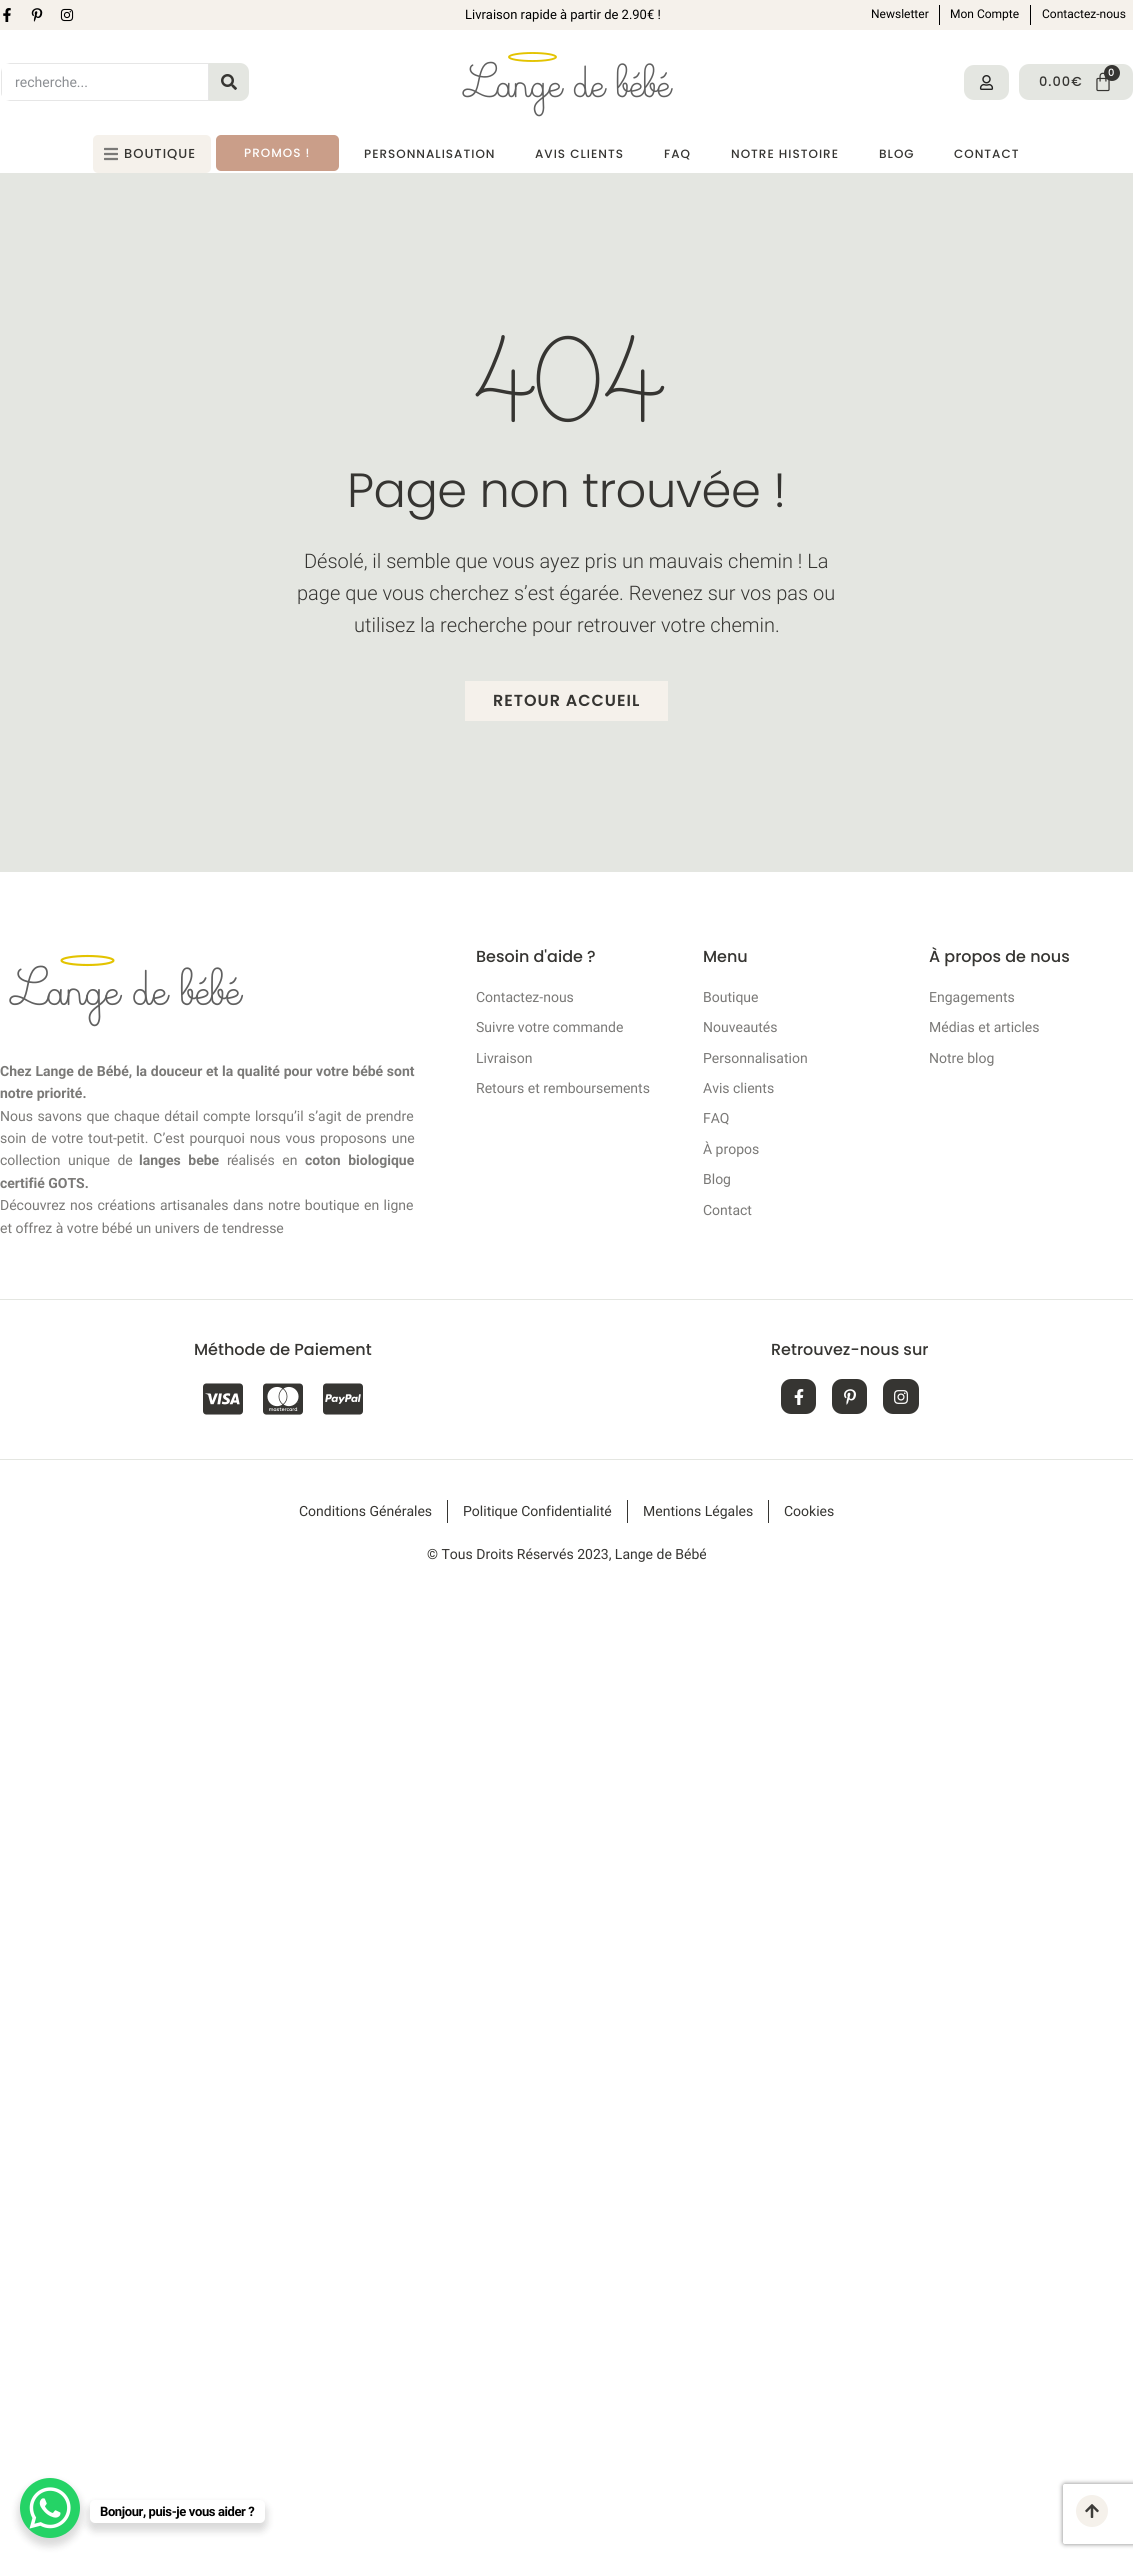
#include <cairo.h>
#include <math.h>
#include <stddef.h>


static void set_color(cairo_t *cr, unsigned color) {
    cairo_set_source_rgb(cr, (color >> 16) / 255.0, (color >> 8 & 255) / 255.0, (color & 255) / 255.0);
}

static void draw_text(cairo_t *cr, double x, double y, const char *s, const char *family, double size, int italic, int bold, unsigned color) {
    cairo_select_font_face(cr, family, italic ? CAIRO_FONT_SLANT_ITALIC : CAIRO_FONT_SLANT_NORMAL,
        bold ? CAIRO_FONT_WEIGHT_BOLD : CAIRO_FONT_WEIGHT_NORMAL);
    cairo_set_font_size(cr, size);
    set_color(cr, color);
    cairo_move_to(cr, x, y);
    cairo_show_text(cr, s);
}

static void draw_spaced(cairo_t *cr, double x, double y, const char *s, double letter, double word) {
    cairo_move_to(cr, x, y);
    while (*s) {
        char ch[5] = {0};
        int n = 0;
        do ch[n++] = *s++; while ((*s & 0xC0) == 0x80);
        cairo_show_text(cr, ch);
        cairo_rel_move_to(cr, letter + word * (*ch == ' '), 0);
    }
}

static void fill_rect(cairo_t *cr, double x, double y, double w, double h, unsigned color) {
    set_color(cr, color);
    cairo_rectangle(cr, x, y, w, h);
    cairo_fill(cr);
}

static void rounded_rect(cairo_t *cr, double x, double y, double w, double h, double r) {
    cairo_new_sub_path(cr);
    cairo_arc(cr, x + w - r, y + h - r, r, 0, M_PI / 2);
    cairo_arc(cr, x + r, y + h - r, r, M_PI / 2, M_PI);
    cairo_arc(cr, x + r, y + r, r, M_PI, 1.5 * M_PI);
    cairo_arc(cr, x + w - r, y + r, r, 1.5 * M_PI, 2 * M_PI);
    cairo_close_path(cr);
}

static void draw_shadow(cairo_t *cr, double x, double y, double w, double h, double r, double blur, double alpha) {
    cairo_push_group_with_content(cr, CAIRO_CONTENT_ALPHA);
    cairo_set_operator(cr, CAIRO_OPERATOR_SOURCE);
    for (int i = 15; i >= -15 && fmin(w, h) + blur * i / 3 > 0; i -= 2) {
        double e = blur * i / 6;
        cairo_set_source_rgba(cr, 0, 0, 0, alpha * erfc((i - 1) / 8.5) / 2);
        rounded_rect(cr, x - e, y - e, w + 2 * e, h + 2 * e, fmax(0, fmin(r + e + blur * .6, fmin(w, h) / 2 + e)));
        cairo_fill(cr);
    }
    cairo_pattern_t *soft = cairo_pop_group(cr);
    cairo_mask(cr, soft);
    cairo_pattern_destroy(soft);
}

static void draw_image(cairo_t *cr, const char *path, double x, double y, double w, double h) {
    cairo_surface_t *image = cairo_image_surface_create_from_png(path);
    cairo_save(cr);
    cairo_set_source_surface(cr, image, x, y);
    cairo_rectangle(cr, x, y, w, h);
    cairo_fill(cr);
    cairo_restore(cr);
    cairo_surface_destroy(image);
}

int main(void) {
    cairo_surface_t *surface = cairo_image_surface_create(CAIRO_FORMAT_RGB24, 1133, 2558);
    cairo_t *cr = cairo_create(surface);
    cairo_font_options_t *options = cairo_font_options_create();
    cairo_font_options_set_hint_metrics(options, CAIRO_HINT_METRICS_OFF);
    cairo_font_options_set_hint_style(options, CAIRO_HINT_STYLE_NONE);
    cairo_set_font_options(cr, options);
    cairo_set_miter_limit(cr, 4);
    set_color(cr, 0xFFFFFF);
    cairo_paint(cr);
    fill_rect(cr, 0, 0, 1133, 30, 0xF5F1EB);
    draw_image(cr, "assets/img1.png", 3, 8, 8, 14);
    draw_image(cr, "assets/img2.png", 31, 8, 12, 14);
    draw_image(cr, "assets/img3.png", 60, 8, 14, 14);
    draw_text(cr, 465, 19, "Livraison rapide à partir de 2.90€ !", "Roboto", 13, 0, 0, 0x000000);
    draw_text(cr, 871, 18, "Newsletter", "Roboto", 12, 0, 0, 0x000000);
    fill_rect(cr, 939, 5, 1, 20, 0x000000);
    draw_text(cr, 950, 18, "Mon Compte", "Roboto", 12, 0, 0, 0x000000);
    fill_rect(cr, 1030, 5, 1, 20, 0x000000);
    draw_text(cr, 1042, 18, "Contactez-nous", "Roboto", 12, 0, 0, 0x000000);
    set_color(cr, 0xE6E6E6);
    cairo_set_fill_rule(cr, CAIRO_FILL_RULE_EVEN_ODD);
    cairo_new_path(cr);
    cairo_move_to(cr, 1, 72);
    cairo_line_to(cr, 1, 92);
    cairo_curve_to(cr, 1, 93, 1, 95, 2, 96);
    cairo_line_to(cr, 2, 68);
    cairo_close_path(cr);
    cairo_move_to(cr, 10, 63);
    cairo_line_to(cr, 6, 64);
    cairo_line_to(cr, 208, 64);
    cairo_line_to(cr, 208, 100);
    cairo_line_to(cr, 6, 100);
    cairo_line_to(cr, 10, 101);
    cairo_line_to(cr, 209, 101);
    cairo_line_to(cr, 209, 63);
    cairo_close_path(cr);
    cairo_fill(cr);
    draw_text(cr, 15, 87, "recherche...", "Roboto", 14, 0, 0, 0x8C8F93);
    set_color(cr, 0xE4E6E1);
    cairo_new_path(cr);
    cairo_move_to(cr, 209, 63);
    cairo_line_to(cr, 240, 63);
    cairo_curve_to(cr, 245, 63, 249, 67, 249, 72);
    cairo_line_to(cr, 249, 92);
    cairo_curve_to(cr, 249, 97, 245, 101, 240, 101);
    cairo_line_to(cr, 209, 101);
    cairo_close_path(cr);
    cairo_fill(cr);
    draw_image(cr, "assets/img4.png", 221, 74, 16, 16);
    draw_image(cr, "assets/img5.png", 462, 52, 211, 65);
    rounded_rect(cr, 964, 65, 45, 35, 10);
    cairo_fill(cr);
    draw_image(cr, "assets/img6.png", 979, 75, 15, 15);
    rounded_rect(cr, 1019, 64, 114, 36, 10);
    cairo_fill(cr);
    draw_image(cr, "assets/img7.png", 1096, 72, 14, 20);
    set_color(cr, 0x363532);
    cairo_arc(cr, 1112, 73, 8, 0, 2 * M_PI);
    cairo_fill(cr);
    cairo_select_font_face(cr, "Poppins Medium", CAIRO_FONT_SLANT_NORMAL, CAIRO_FONT_WEIGHT_NORMAL);
    cairo_set_font_size(cr, 10);
    set_color(cr, 0xFFFFFF);
    draw_spaced(cr, 1108, 76, "0", 1, 0);
    cairo_set_font_size(cr, 13);
    set_color(cr, 0x363532);
    draw_spaced(cr, 1039, 86, "0.00€", 1, 0);
    set_color(cr, 0xF5F1EB);
    rounded_rect(cr, 93, 135, 118, 38, 5);
    cairo_fill(cr);
    draw_image(cr, "assets/img8.png", 104, 147, 14, 14);
    set_color(cr, 0x363532);
    draw_spaced(cr, 124, 158, "BOUTIQUE", 1, 0);
    set_color(cr, 0xCA9E89);
    rounded_rect(cr, 216, 135, 123, 36, 5);
    cairo_fill(cr);
    cairo_set_font_size(cr, 12);
    set_color(cr, 0xFFFFFF);
    draw_spaced(cr, 244, 157, "PROMOS !", 1, 0);
    set_color(cr, 0x363532);
    draw_spaced(cr, 364, 158, "PERSONNALISATION", 1, 0);
    draw_spaced(cr, 535, 158, "AVIS CLIENTS", 1, 0);
    draw_spaced(cr, 664, 158, "FAQ", 1, 0);
    draw_spaced(cr, 731, 158, "NOTRE HISTOIRE", 1, 0);
    draw_spaced(cr, 879, 158, "BLOG", 1, 0);
    draw_spaced(cr, 954, 158, "CONTACT", 1, 0);
    fill_rect(cr, 0, 173, 1133, 699, 0xE4E6E1);
    cairo_select_font_face(cr, "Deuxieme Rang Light", CAIRO_FONT_SLANT_NORMAL, CAIRO_FONT_WEIGHT_NORMAL);
    cairo_set_font_size(cr, 112);
    set_color(cr, 0x363532);
    draw_spaced(cr, 472, 422, "404", -0.5, 0);
    cairo_select_font_face(cr, "Poppins Light", CAIRO_FONT_SLANT_NORMAL, CAIRO_FONT_WEIGHT_NORMAL);
    cairo_set_font_size(cr, 48);
    draw_spaced(cr, 347, 507, "Page non trouvée !", -0.5, 0);
    draw_text(cr, 304, 568, "Désolé, il semble que vous ayez pris un mauvais chemin ! La", "Roboto Light", 20, 0, 0, 0x363532);
    draw_text(cr, 297, 600, "page que vous cherchez s’est égarée. Revenez sur vos pas ou", "Roboto Light", 20, 0, 0, 0x363532);
    draw_text(cr, 354, 632, "utilisez la recherche pour retrouver votre chemin.", "Roboto Light", 20, 0, 0, 0x363532);
    fill_rect(cr, 465, 681, 203, 40, 0xF5F1EB);
    cairo_select_font_face(cr, "Poppins SemiBold", CAIRO_FONT_SLANT_NORMAL, CAIRO_FONT_WEIGHT_NORMAL);
    cairo_set_font_size(cr, 16);
    set_color(cr, 0x363532);
    draw_spaced(cr, 493, 706, "RETOUR ACCUEIL", 1, 0);
    draw_image(cr, "assets/img9.png", 9, 954, 235, 73);
    cairo_select_font_face(cr, "Roboto", CAIRO_FONT_SLANT_NORMAL, CAIRO_FONT_WEIGHT_BOLD);
    cairo_set_font_size(cr, 14);
    set_color(cr, 0x7A7977);
    draw_spaced(cr, 0, 1076, "Chez Lange de Bébé, la douceur et la qualité pour votre bébé sont", 0, 0.25);
    draw_text(cr, 0, 1098, "notre priorité.", "Roboto", 14, 0, 1, 0x7A7977);
    cairo_select_font_face(cr, "Roboto", CAIRO_FONT_SLANT_NORMAL, CAIRO_FONT_WEIGHT_NORMAL);
    draw_spaced(cr, 0, 1121, "Nous savons que chaque détail compte lorsqu’il s’agit de prendre", 0, 1);
    draw_spaced(cr, 0, 1143, "soin de votre tout-petit. C’est pourquoi nous vous proposons une", 0, 1.5);
    draw_spaced(cr, 0, 1165, "collection unique de", 0, 4);
    cairo_select_font_face(cr, "Roboto", CAIRO_FONT_SLANT_NORMAL, CAIRO_FONT_WEIGHT_BOLD);
    draw_spaced(cr, 139, 1165, "langes bebe", 0, 4);
    draw_text(cr, 227, 1165, "r", "Roboto", 14, 0, 0, 0x7A7977);
    draw_spaced(cr, 231, 1165, "éalisés en", 0, 4);
    cairo_select_font_face(cr, "Roboto", CAIRO_FONT_SLANT_NORMAL, CAIRO_FONT_WEIGHT_BOLD);
    draw_spaced(cr, 305, 1165, "coton biologique", 0, 4);
    draw_text(cr, 0, 1188, "certifié GOTS.", "Roboto", 14, 0, 1, 0x7A7977);
    cairo_select_font_face(cr, "Roboto", CAIRO_FONT_SLANT_NORMAL, CAIRO_FONT_WEIGHT_NORMAL);
    draw_spaced(cr, 0, 1210, "Découvrez nos créations artisanales dans notre boutique en ligne", 0, 1);
    draw_text(cr, 0, 1233, "et offrez à votre bébé un univers de tendresse", "Roboto", 14, 0, 0, 0x7A7977);
    draw_text(cr, 476, 962, "Besoin d'aide ?", "Poppins Medium", 16, 0, 0, 0x363532);
    draw_text(cr, 476, 1002, "Contactez-nous", "Roboto", 14, 0, 0, 0x7A7977);
    draw_text(cr, 476, 1032, "Suivre votre commande", "Roboto", 14, 0, 0, 0x7A7977);
    draw_text(cr, 476, 1063, "Livraison", "Roboto", 14, 0, 0, 0x7A7977);
    draw_text(cr, 476, 1093, "Retours et remboursements", "Roboto", 14, 0, 0, 0x7A7977);
    draw_text(cr, 703, 962, "Menu", "Poppins Medium", 16, 0, 0, 0x363532);
    draw_text(cr, 703, 1002, "Boutique", "Roboto", 14, 0, 0, 0x7A7977);
    draw_text(cr, 703, 1032, "Nouveautés", "Roboto", 14, 0, 0, 0x7A7977);
    draw_text(cr, 703, 1063, "Personnalisation", "Roboto", 14, 0, 0, 0x7A7977);
    draw_text(cr, 703, 1093, "Avis clients", "Roboto", 14, 0, 0, 0x7A7977);
    draw_text(cr, 703, 1123, "FAQ", "Roboto", 14, 0, 0, 0x7A7977);
    draw_text(cr, 703, 1154, "À propos", "Roboto", 14, 0, 0, 0x7A7977);
    draw_text(cr, 703, 1184, "Blog", "Roboto", 14, 0, 0, 0x7A7977);
    draw_text(cr, 703, 1215, "Contact", "Roboto", 14, 0, 0, 0x7A7977);
    draw_text(cr, 929, 962, "À propos de nous", "Poppins Medium", 16, 0, 0, 0x363532);
    draw_text(cr, 929, 1002, "Engagements", "Roboto", 14, 0, 0, 0x7A7977);
    draw_text(cr, 929, 1032, "Médias et articles", "Roboto", 14, 0, 0, 0x7A7977);
    draw_text(cr, 929, 1063, "Notre blog", "Roboto", 14, 0, 0, 0x7A7977);
    fill_rect(cr, 0, 1299, 1133, 1, 0xE4E6E1);
    draw_text(cr, 194, 1355, "Méthode de Paiement", "Poppins Medium", 16, 0, 0, 0x363532);
    draw_image(cr, "assets/img10.png", 203, 1383, 40, 32);
    draw_image(cr, "assets/img11.png", 263, 1383, 40, 32);
    draw_image(cr, "assets/img12.png", 323, 1383, 40, 32);
    draw_text(cr, 771, 1355, "Retrouvez-nous sur", "Poppins Medium", 16, 0, 0, 0x363532);
    rounded_rect(cr, 781, 1379, 35, 35, 10);
    cairo_fill(cr);
    draw_image(cr, "assets/img13.png", 794, 1389, 10, 16);
    rounded_rect(cr, 832, 1379, 35, 35, 10);
    cairo_fill(cr);
    draw_image(cr, "assets/img14.png", 844, 1389, 12, 16);
    rounded_rect(cr, 883, 1379, 36, 35, 10);
    cairo_fill(cr);
    draw_image(cr, "assets/img15.png", 894, 1390, 14, 14);
    fill_rect(cr, 0, 1459, 1133, 1, 0xE4E6E1);
    draw_text(cr, 299, 1516, "Conditions Générales", "Roboto", 14, 0, 0, 0x363532);
    fill_rect(cr, 447, 1500, 1, 23, 0x363532);
    draw_text(cr, 463, 1516, "Politique Confidentialité", "Roboto", 14, 0, 0, 0x363532);
    fill_rect(cr, 627, 1500, 1, 23, 0x363532);
    draw_text(cr, 643, 1516, "Mentions Légales", "Roboto", 14, 0, 0, 0x363532);
    fill_rect(cr, 768, 1500, 1, 23, 0x363532);
    draw_text(cr, 784, 1516, "Cookies", "Roboto", 14, 0, 0, 0x363532);
    draw_text(cr, 427, 1559, "© Tous Droits Réservés 2023, Lange de Bébé", "Roboto", 14, 0, 0, 0x363532);
    cairo_save(cr);
    cairo_new_path(cr);
    cairo_move_to(cr, 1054, 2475);
    cairo_line_to(cr, 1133, 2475);
    cairo_line_to(cr, 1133, 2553);
    cairo_line_to(cr, 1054, 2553);
    cairo_close_path(cr);
    cairo_move_to(cr, 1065, 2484);
    cairo_line_to(cr, 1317, 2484);
    cairo_curve_to(cr, 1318, 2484, 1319, 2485, 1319, 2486);
    cairo_line_to(cr, 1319, 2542);
    cairo_curve_to(cr, 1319, 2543, 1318, 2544, 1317, 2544);
    cairo_line_to(cr, 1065, 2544);
    cairo_curve_to(cr, 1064, 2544, 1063, 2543, 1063, 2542);
    cairo_line_to(cr, 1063, 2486);
    cairo_curve_to(cr, 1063, 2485, 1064, 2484, 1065, 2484);
    cairo_close_path(cr);
    cairo_clip(cr);
    set_color(cr, 0x808080);
    draw_shadow(cr, 1063, 2484, 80, 60, 2, 2.5, 1);
    cairo_restore(cr);
    set_color(cr, 0xF5F1EB);
    cairo_arc(cr, 1092, 2511, 16, 0, 2 * M_PI);
    cairo_fill(cr);
    draw_image(cr, "assets/img16.png", 1085, 2504, 14, 14);
    set_color(cr, 0x000000);
    draw_shadow(cr, 18, 2482, 64, 64, 32, 4, 0.15);
    set_color(cr, 0x25D366);
    cairo_arc(cr, 50, 2508, 30, 0, 2 * M_PI);
    cairo_fill(cr);
    draw_image(cr, "assets/img17.png", 29, 2487, 42, 42);
    set_color(cr, 0x000000);
    draw_shadow(cr, 88, 2504, 179, 27, 7, 4, 0.15);
    set_color(cr, 0xFFFFFF);
    rounded_rect(cr, 90, 2500, 175, 23, 5);
    cairo_fill(cr);
    cairo_select_font_face(cr, "Roboto", CAIRO_FONT_SLANT_NORMAL, CAIRO_FONT_WEIGHT_BOLD);
    cairo_set_font_size(cr, 13);
    set_color(cr, 0x000000);
    draw_spaced(cr, 100, 2516, "Bonjour, puis-je vous aider ?", -0.4, 0);
    cairo_surface_write_to_png(surface, "output.png");
    cairo_font_options_destroy(options);
    cairo_destroy(cr);
    cairo_surface_destroy(surface);
    return 0;
}
